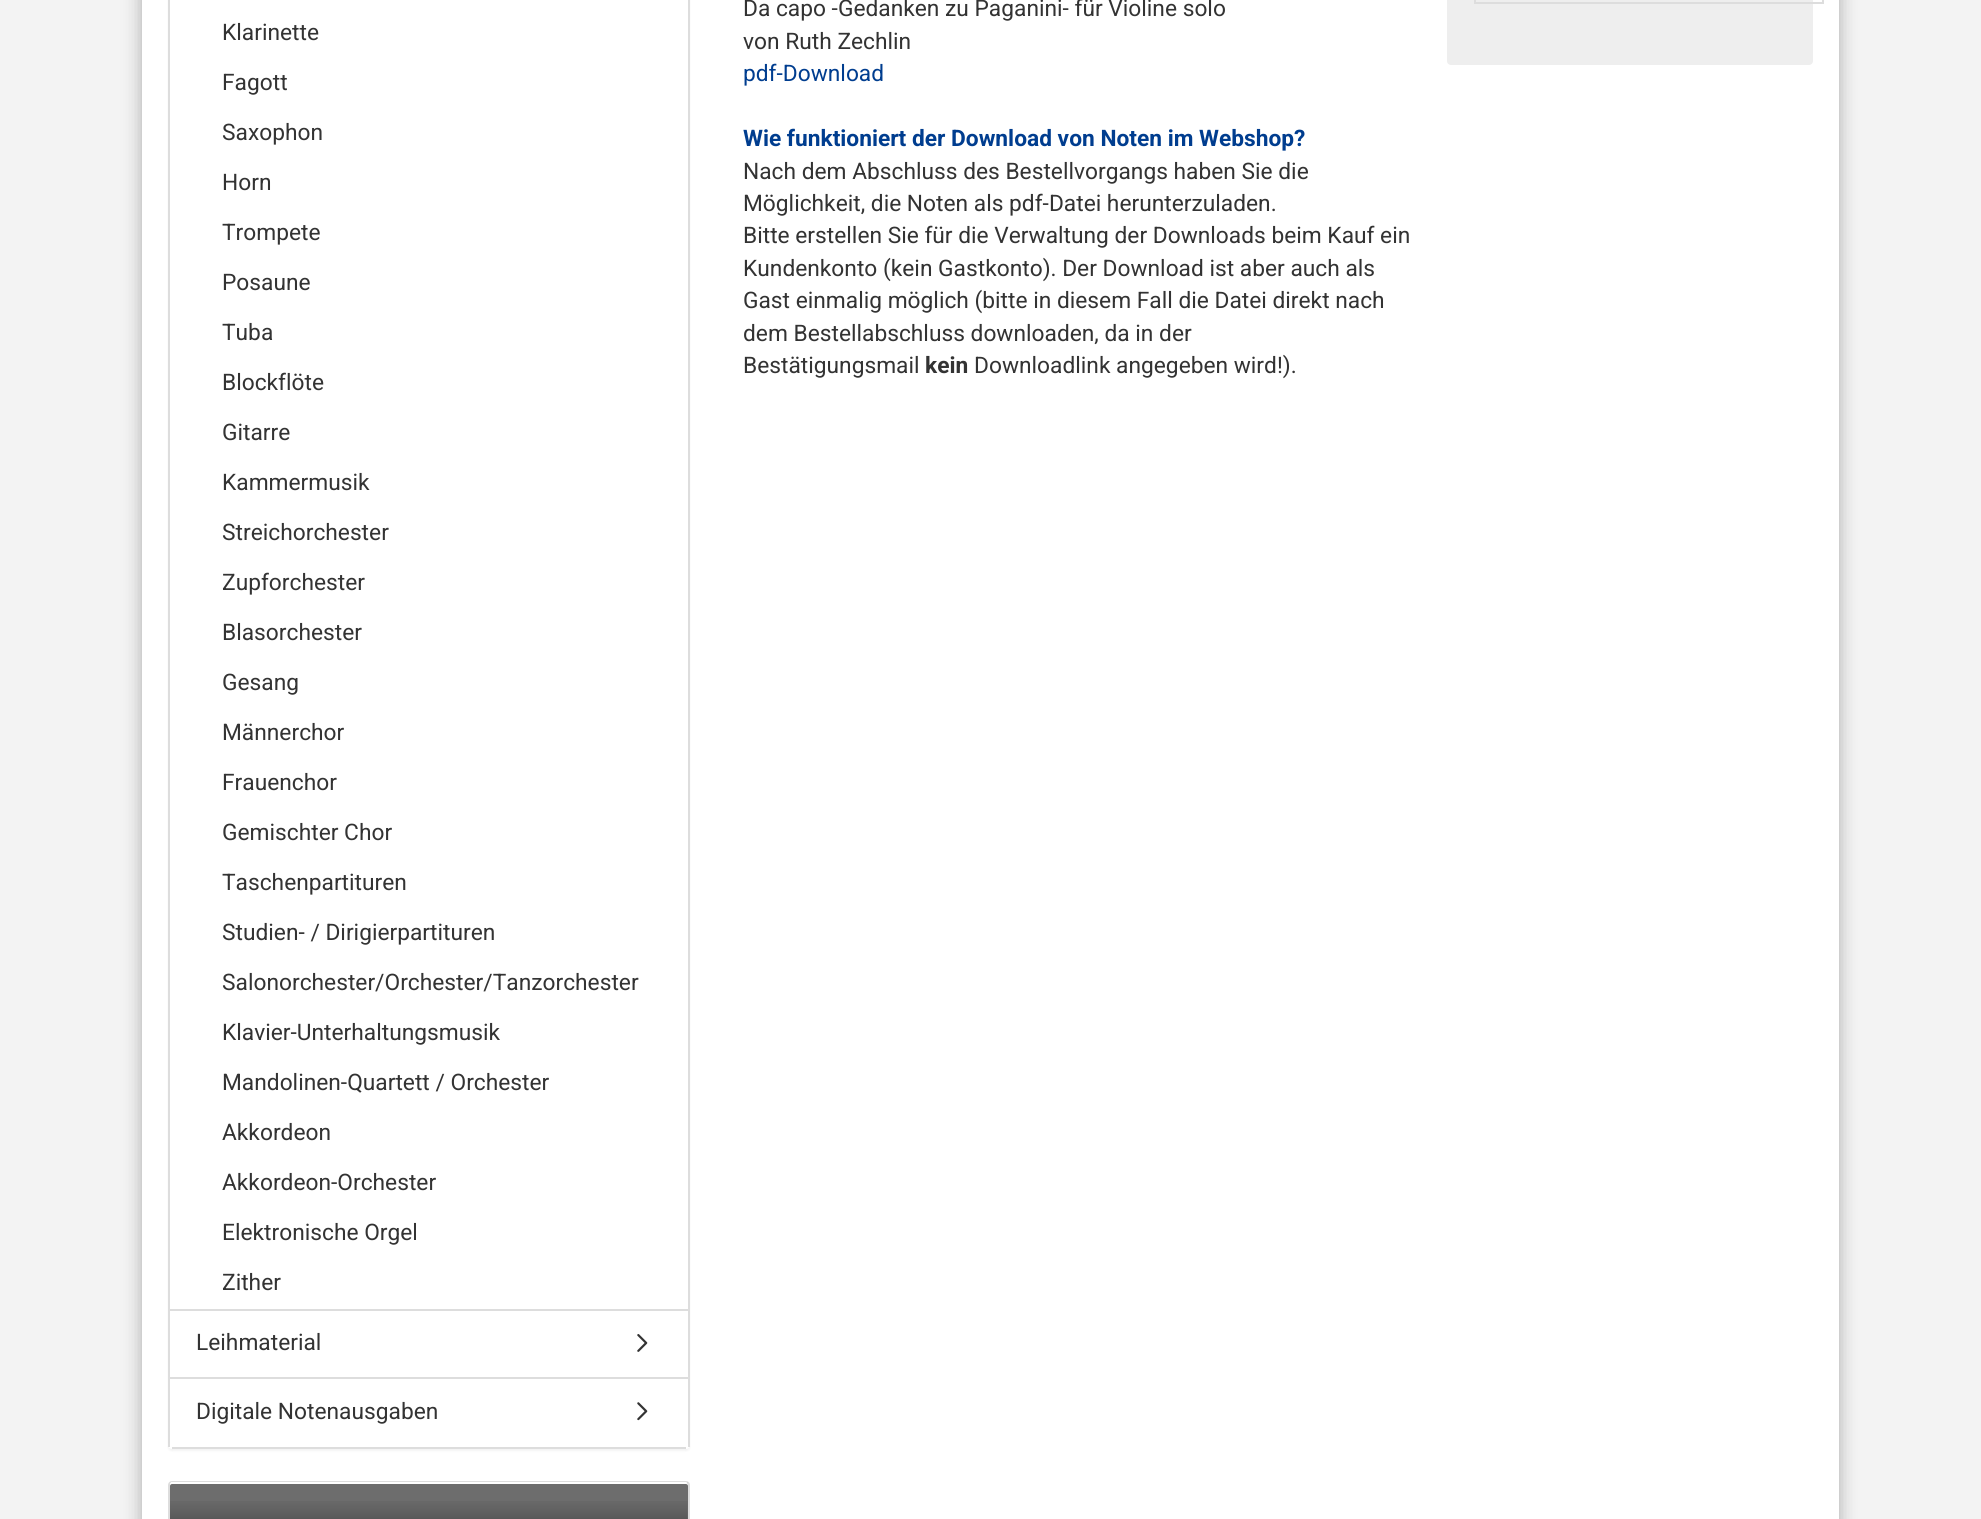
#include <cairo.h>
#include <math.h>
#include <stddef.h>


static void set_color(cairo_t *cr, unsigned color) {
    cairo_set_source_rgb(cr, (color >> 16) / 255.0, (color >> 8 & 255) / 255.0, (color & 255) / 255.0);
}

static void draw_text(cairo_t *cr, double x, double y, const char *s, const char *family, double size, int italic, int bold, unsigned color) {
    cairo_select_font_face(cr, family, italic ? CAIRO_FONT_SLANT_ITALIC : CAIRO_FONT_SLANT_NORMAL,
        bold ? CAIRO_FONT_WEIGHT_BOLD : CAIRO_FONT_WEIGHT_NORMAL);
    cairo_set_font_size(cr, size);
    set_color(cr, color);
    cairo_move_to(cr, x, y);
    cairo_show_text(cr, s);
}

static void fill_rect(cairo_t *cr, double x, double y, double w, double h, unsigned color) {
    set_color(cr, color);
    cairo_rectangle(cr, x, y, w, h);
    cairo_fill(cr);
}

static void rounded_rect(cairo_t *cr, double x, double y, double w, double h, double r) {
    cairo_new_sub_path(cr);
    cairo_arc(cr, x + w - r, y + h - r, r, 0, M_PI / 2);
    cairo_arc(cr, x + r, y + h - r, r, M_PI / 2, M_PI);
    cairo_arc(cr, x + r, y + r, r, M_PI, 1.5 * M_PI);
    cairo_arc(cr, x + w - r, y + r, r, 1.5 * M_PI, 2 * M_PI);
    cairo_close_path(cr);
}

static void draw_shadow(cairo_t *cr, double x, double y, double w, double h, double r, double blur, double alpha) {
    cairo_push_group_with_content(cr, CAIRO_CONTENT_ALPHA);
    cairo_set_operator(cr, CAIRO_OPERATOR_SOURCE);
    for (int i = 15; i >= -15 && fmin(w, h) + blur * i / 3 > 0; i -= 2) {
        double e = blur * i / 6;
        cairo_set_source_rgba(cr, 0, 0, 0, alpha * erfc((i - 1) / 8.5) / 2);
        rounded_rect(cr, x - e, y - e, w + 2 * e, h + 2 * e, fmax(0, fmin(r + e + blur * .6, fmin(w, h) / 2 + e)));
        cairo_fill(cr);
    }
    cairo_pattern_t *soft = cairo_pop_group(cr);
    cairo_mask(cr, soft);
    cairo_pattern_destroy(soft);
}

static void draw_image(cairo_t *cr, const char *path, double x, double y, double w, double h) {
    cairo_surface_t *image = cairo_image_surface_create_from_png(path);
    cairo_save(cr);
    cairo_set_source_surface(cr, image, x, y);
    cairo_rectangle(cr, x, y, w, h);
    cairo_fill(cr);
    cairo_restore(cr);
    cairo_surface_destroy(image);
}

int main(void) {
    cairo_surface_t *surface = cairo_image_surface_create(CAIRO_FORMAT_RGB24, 1981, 1519);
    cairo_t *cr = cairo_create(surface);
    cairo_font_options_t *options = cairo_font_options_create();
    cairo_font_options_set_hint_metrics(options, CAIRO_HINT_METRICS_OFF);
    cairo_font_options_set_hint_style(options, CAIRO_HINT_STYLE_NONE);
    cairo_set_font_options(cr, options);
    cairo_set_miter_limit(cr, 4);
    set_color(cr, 0xF3F3F3);
    cairo_paint(cr);
    set_color(cr, 0x000000);
    draw_shadow(cr, 142, -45, 1697, 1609, 18, 9, 0.3);
    fill_rect(cr, 142, 0, 1697, 1519, 0xFFFFFF);
    set_color(cr, 0x000000);
    draw_shadow(cr, 168, -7, 522, 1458, 4, 1, 0.05);
    set_color(cr, 0xFFFFFF);
    rounded_rect(cr, 168, -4, 522, 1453, 4);
    cairo_fill(cr);
    fill_rect(cr, 688, 0, 2, 1447, 0xDDDDDD);
    fill_rect(cr, 168, 0, 2, 1447, 0xDDDDDD);
    fill_rect(cr, 170, 1309, 518, 2, 0xDDDDDD);
    draw_text(cr, 222, 40, "Klarinette", "Roboto", 22.75, 0, 0, 0x333333);
    draw_text(cr, 222, 90, "Fagott", "Roboto", 22.75, 0, 0, 0x333333);
    draw_text(cr, 222, 140, "Saxophon", "Roboto", 22.75, 0, 0, 0x333333);
    draw_text(cr, 222, 190, "Horn", "Roboto", 22.75, 0, 0, 0x333333);
    draw_text(cr, 222, 240, "Trompete", "Roboto", 22.75, 0, 0, 0x333333);
    draw_text(cr, 222, 290, "Posaune", "Roboto", 22.75, 0, 0, 0x333333);
    draw_text(cr, 222, 340, "Tuba", "Roboto", 22.75, 0, 0, 0x333333);
    draw_text(cr, 222, 390, "Blockflöte", "Roboto", 22.75, 0, 0, 0x333333);
    draw_text(cr, 222, 440, "Gitarre", "Roboto", 22.75, 0, 0, 0x333333);
    draw_text(cr, 222, 490, "Kammermusik", "Roboto", 22.75, 0, 0, 0x333333);
    draw_text(cr, 222, 540, "Streichorchester", "Roboto", 22.75, 0, 0, 0x333333);
    draw_text(cr, 222, 590, "Zupforchester", "Roboto", 22.75, 0, 0, 0x333333);
    draw_text(cr, 222, 640, "Blasorchester", "Roboto", 22.75, 0, 0, 0x333333);
    draw_text(cr, 222, 690, "Gesang", "Roboto", 22.75, 0, 0, 0x333333);
    draw_text(cr, 222, 740, "Männerchor", "Roboto", 22.75, 0, 0, 0x333333);
    draw_text(cr, 222, 790, "Frauenchor", "Roboto", 22.75, 0, 0, 0x333333);
    draw_text(cr, 222, 840, "Gemischter Chor", "Roboto", 22.75, 0, 0, 0x333333);
    draw_text(cr, 222, 890, "Taschenpartituren", "Roboto", 22.75, 0, 0, 0x333333);
    draw_text(cr, 222, 940, "Studien- / Dirigierpartituren", "Roboto", 22.75, 0, 0, 0x333333);
    draw_text(cr, 222, 990, "Salonorchester/Orchester/Tanzorchester", "Roboto", 22.75, 0, 0, 0x333333);
    draw_text(cr, 222, 1040, "Klavier-Unterhaltungsmusik", "Roboto", 22.75, 0, 0, 0x333333);
    draw_text(cr, 222, 1090, "Mandolinen-Quartett / Orchester", "Roboto", 22.75, 0, 0, 0x333333);
    draw_text(cr, 222, 1140, "Akkordeon", "Roboto", 22.75, 0, 0, 0x333333);
    draw_text(cr, 222, 1190, "Akkordeon-Orchester", "Roboto", 22.75, 0, 0, 0x333333);
    draw_text(cr, 222, 1240, "Elektronische Orgel", "Roboto", 22.75, 0, 0, 0x333333);
    draw_text(cr, 222, 1290, "Zither", "Roboto", 22.75, 0, 0, 0x333333);
    fill_rect(cr, 170, 1377, 518, 2, 0xDDDDDD);
    draw_text(cr, 196, 1350, "Leihmaterial", "Roboto", 22.75, 0, 0, 0x333333);
    draw_image(cr, "assets/img1.png", 637, 1334, 11, 18);
    fill_rect(cr, 172, 1447, 514, 2, 0xDDDDDD);
    draw_text(cr, 196, 1419, "Digitale Notenausgaben", "Roboto", 22.75, 0, 0, 0x333333);
    draw_image(cr, "assets/img2.png", 637, 1402, 11, 19);
    rounded_rect(cr, 169, 1482, 520, 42, 3);
    set_color(cr, 0xDDDDDD);
    cairo_stroke(cr);
    set_color(cr, 0x6D6D6D);
    cairo_new_path(cr);
    cairo_move_to(cr, 172, 1482);
    cairo_line_to(cr, 686, 1482);
    cairo_curve_to(cr, 687, 1482, 688, 1483, 688, 1484);
    cairo_line_to(cr, 688, 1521);
    cairo_line_to(cr, 170, 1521);
    cairo_line_to(cr, 170, 1484);
    cairo_curve_to(cr, 170, 1483, 171, 1482, 172, 1482);
    cairo_close_path(cr);
    cairo_fill(cr);
    draw_image(cr, "assets/img3.png", 170, 1501, 518, 18);
    set_color(cr, 0xFFFFFF);
    cairo_new_path(cr);
    cairo_move_to(cr, 172, 1484);
    cairo_line_to(cr, 686, 1484);
    cairo_curve_to(cr, 687, 1484, 688, 1485, 688, 1486);
    cairo_curve_to(cr, 688, 1484, 688, 1482, 686, 1482);
    cairo_line_to(cr, 171, 1482);
    cairo_line_to(cr, 170, 1483);
    cairo_line_to(cr, 170, 1486);
    cairo_curve_to(cr, 170, 1485, 171, 1484, 172, 1484);
    cairo_close_path(cr);
    cairo_fill(cr);
    draw_text(cr, 743, 16, "Da capo -Gedanken zu Paganini- für Violine solo", "Roboto", 22.75, 0, 0, 0x333333);
    draw_text(cr, 743, 49, "von Ruth Zechlin", "Roboto", 22.75, 0, 0, 0x333333);
    draw_text(cr, 743, 81, "pdf-Download", "Roboto", 22.75, 0, 0, 0x003D8F);
    draw_text(cr, 743, 146, "Wie funktioniert der Download von Noten im Webshop?", "Roboto", 22.75, 0, 1, 0x003D8F);
    draw_text(cr, 743, 179, "Nach dem Abschluss des Bestellvorgangs haben Sie die", "Roboto", 22.75, 0, 0, 0x333333);
    draw_text(cr, 743, 211, "Möglichkeit, die Noten als pdf-Datei herunterzuladen.", "Roboto", 22.75, 0, 0, 0x333333);
    draw_text(cr, 743, 243, "Bitte erstellen Sie für die Verwaltung der Downloads beim Kauf ein", "Roboto", 22.75, 0, 0, 0x333333);
    draw_text(cr, 743, 276, "Kundenkonto (kein Gastkonto). Der Download ist aber auch als", "Roboto", 22.75, 0, 0, 0x333333);
    draw_text(cr, 743, 308, "Gast einmalig möglich (bitte in diesem Fall die Datei direkt nach", "Roboto", 22.75, 0, 0, 0x333333);
    draw_text(cr, 743, 341, "dem Bestellabschluss downloaden, da in der", "Roboto", 22.75, 0, 0, 0x333333);
    draw_text(cr, 743, 373, "Bestätigungsmail", "Roboto", 22.75, 0, 0, 0x333333);
    draw_text(cr, 925, 373, "kein", "Roboto", 22.75, 0, 1, 0x333333);
    draw_text(cr, 974, 373, "Downloadlink angegeben wird!).", "Roboto", 22.75, 0, 0, 0x333333);
    set_color(cr, 0xEEEEEE);
    rounded_rect(cr, 1447, -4, 366, 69, 4);
    cairo_fill(cr);
    cairo_rectangle(cr, 1475, -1, 348, 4);
    set_color(cr, 0xDDDDDD);
    cairo_stroke(cr);
    cairo_surface_write_to_png(surface, "output.png");
    cairo_font_options_destroy(options);
    cairo_destroy(cr);
    cairo_surface_destroy(surface);
    return 0;
}
